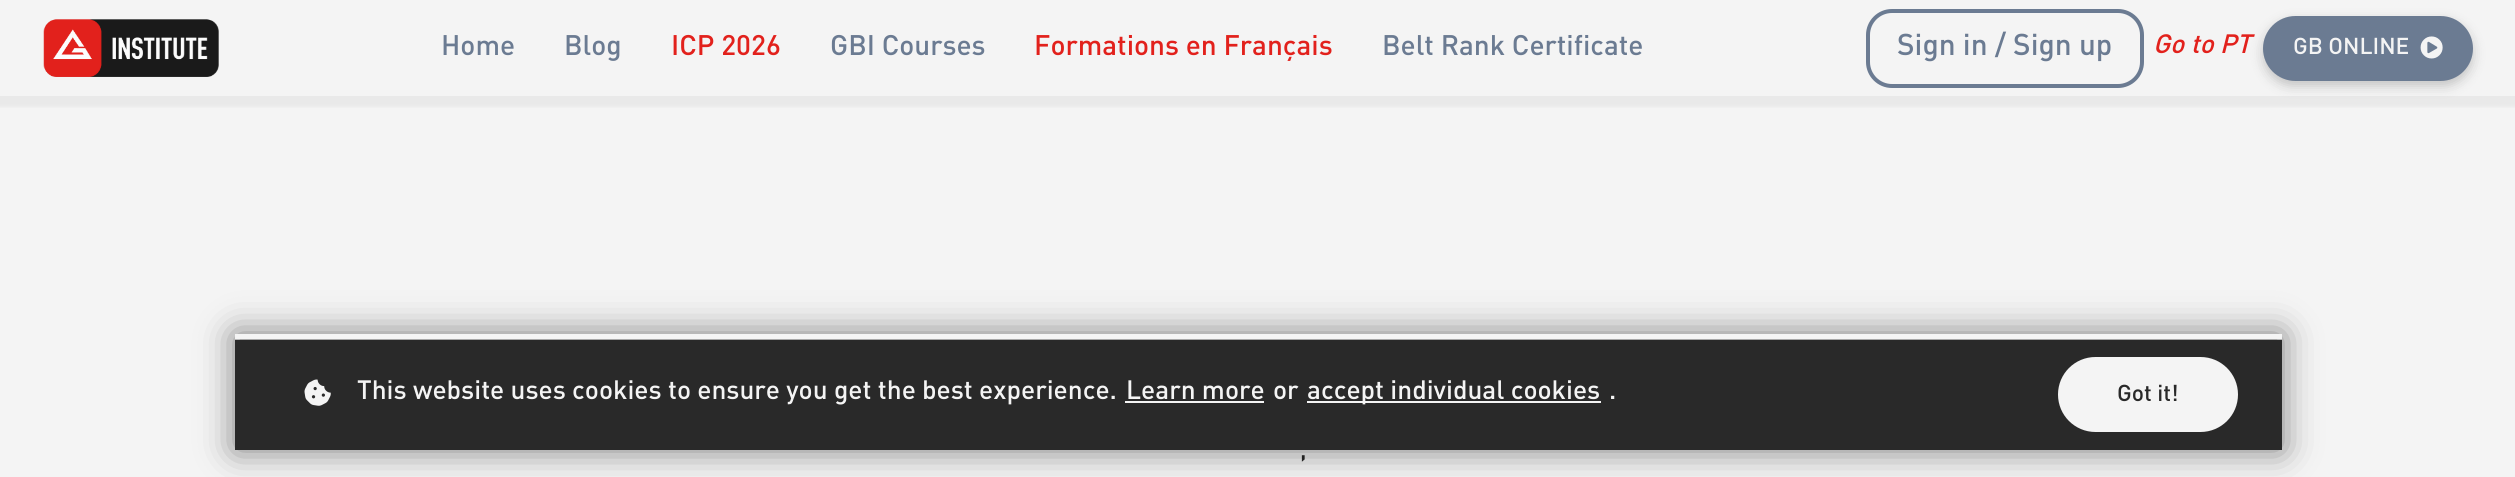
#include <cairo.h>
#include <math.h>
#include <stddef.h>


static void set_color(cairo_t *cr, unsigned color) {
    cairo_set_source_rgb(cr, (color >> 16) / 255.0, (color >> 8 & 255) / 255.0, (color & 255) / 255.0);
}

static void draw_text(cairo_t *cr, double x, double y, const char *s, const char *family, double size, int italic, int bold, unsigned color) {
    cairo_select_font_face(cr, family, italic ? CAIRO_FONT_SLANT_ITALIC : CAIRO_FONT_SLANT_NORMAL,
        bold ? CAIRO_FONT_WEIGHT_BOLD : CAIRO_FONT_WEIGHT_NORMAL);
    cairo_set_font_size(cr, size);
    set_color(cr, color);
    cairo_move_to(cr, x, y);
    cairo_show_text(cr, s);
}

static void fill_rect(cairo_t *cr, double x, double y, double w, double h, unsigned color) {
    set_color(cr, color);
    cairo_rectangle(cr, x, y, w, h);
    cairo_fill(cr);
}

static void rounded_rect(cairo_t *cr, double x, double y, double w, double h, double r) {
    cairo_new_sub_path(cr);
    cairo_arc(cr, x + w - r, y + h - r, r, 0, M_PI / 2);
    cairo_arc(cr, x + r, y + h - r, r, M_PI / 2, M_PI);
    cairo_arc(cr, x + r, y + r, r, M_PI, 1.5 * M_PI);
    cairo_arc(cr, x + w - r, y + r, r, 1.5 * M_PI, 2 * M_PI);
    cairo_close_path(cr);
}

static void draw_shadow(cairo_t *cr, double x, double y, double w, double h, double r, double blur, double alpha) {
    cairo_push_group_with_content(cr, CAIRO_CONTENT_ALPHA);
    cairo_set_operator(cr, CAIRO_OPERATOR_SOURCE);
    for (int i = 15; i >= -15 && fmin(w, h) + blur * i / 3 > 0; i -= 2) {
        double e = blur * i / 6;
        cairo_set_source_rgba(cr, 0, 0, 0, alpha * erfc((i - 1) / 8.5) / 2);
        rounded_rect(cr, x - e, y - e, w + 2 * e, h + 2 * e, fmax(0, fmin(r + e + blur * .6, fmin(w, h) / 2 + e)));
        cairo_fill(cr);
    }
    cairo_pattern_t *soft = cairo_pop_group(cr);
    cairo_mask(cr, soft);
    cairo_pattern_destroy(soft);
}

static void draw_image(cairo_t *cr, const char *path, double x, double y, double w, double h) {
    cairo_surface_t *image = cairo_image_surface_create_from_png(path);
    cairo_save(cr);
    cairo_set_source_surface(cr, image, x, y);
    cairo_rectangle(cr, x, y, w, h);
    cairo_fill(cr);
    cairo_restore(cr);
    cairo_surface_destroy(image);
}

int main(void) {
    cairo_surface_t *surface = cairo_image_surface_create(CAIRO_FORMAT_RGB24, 2515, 477);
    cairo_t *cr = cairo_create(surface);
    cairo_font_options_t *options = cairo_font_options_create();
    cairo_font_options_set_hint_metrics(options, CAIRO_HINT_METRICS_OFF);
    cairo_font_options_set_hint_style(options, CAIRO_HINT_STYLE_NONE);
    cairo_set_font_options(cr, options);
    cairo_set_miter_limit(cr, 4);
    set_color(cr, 0xF4F4F4);
    cairo_paint(cr);
    cairo_save(cr);
    cairo_rectangle(cr, 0, 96, 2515, 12);
    cairo_clip(cr);
    set_color(cr, 0x000000);
    draw_shadow(cr, -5, 0, 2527, 107, 0, 2.5, 0.05);
    cairo_restore(cr);
    draw_image(cr, "assets/img1.png", 43, 19, 176, 58);
    draw_text(cr, 441, 55, "Home", "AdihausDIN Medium", 28, 0, 0, 0x6B7B92);
    draw_text(cr, 564, 55, "Blog", "AdihausDIN Medium", 28, 0, 0, 0x6B7B92);
    draw_text(cr, 671, 55, "ICP 2026", "AdihausDIN Medium", 28, 0, 0, 0xE2211C);
    draw_text(cr, 830, 55, "GBI Courses", "AdihausDIN Medium", 28, 0, 0, 0x6B7B92);
    draw_text(cr, 1034, 55, "Formations en Français", "AdihausDIN Medium", 28, 0, 0, 0xE2211C);
    draw_text(cr, 1382, 55, "Belt Rank Certificate", "AdihausDIN Medium", 28, 0, 0, 0x6B7B92);
    rounded_rect(cr, 1868, 11, 274, 75, 24);
    cairo_set_line_width(cr, 4);
    cairo_stroke(cr);
    draw_text(cr, 1897, 55, "Sign in / Sign up", "AdihausDIN Medium", 29.75, 0, 0, 0x6B7B92);
    draw_text(cr, 2153, 53, "Go to PT", "AdihausDIN Medium", 26.25, 1, 0, 0xE2211C);
    set_color(cr, 0x000000);
    draw_shadow(cr, 2263, 21, 210, 65, 32.5, 6, 0.2);
    set_color(cr, 0x6B7B92);
    rounded_rect(cr, 2263, 16, 210, 65, 32.5);
    cairo_fill(cr);
    draw_text(cr, 2293, 54, "GB ONLINE", "AdihausDIN Medium", 22.75, 0, 0, 0xF4F4F4);
    draw_image(cr, "assets/img2.png", 2420, 36, 23, 23);
    draw_text(cr, 1300, 458, ",", "AdihausDIN Medium", 24, 0, 0, 0x292929);
    set_color(cr, 0x000000);
    draw_shadow(cr, 235, 334, 2047, 116, 0, 17.5, 0.5);
    fill_rect(cr, 235, 340, 2047, 110, 0x292929);
    fill_rect(cr, 235, 334, 2047, 5, 0xF4F4F4);
    draw_image(cr, "assets/img3.png", 304, 379, 27, 27);
    draw_text(cr, 357, 399, "This website uses cookies to ensure you get the best experience.", "AdihausDIN Medium", 26.25, 0, 0, 0xF4F4F4);
    draw_text(cr, 1126, 399, "Learn more", "AdihausDIN Medium", 26.25, 0, 0, 0xF4F4F4);
    fill_rect(cr, 1125, 401, 139, 2, 0xF4F4F4);
    draw_text(cr, 1273, 399, "or", "AdihausDIN Medium", 26.25, 0, 0, 0xF4F4F4);
    fill_rect(cr, 1307, 401, 294, 2, 0xF4F4F4);
    draw_text(cr, 1307, 399, "accept individual cookies", "AdihausDIN Medium", 26.25, 0, 0, 0xF4F4F4);
    draw_text(cr, 1609, 399, ".", "AdihausDIN Medium", 26.25, 0, 0, 0xF4F4F4);
    rounded_rect(cr, 2058, 357, 180, 75, 37.5);
    cairo_fill(cr);
    draw_text(cr, 2117, 401, "Got it!", "AdihausDIN Medium", 22.75, 0, 0, 0x292929);
    cairo_surface_write_to_png(surface, "output.png");
    cairo_font_options_destroy(options);
    cairo_destroy(cr);
    cairo_surface_destroy(surface);
    return 0;
}
